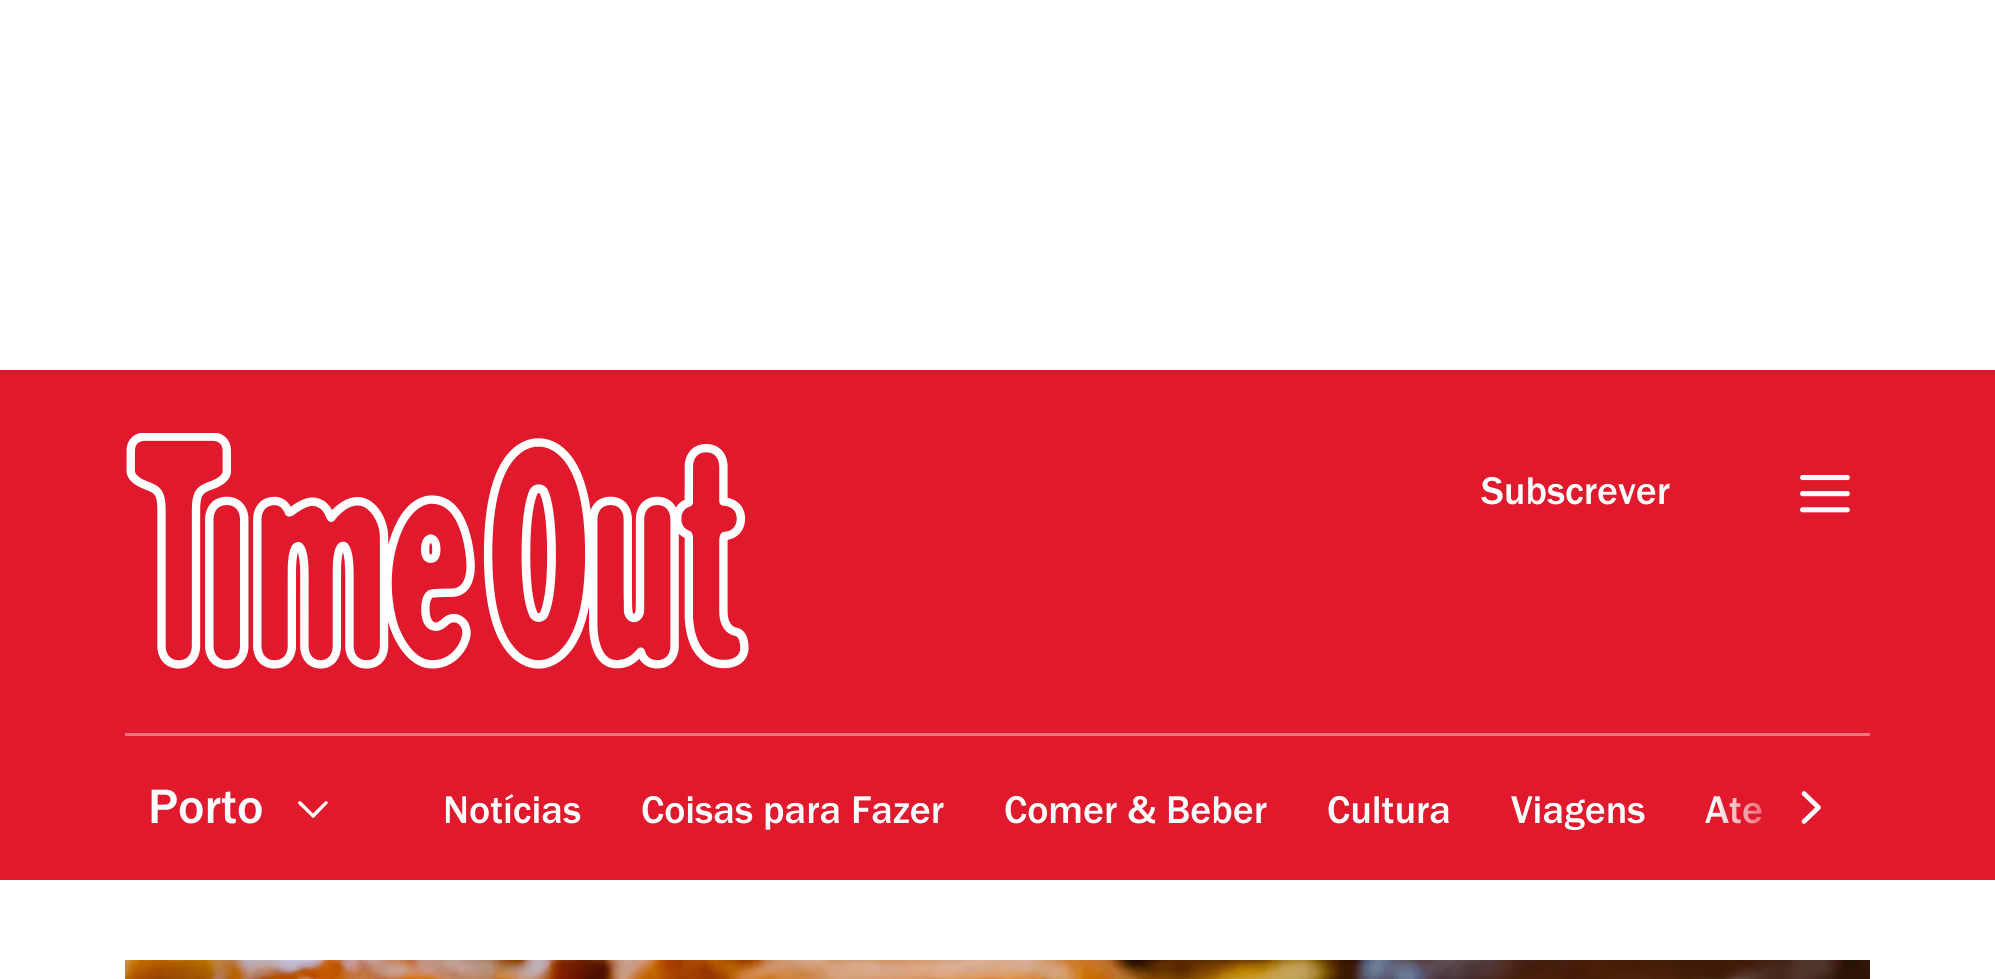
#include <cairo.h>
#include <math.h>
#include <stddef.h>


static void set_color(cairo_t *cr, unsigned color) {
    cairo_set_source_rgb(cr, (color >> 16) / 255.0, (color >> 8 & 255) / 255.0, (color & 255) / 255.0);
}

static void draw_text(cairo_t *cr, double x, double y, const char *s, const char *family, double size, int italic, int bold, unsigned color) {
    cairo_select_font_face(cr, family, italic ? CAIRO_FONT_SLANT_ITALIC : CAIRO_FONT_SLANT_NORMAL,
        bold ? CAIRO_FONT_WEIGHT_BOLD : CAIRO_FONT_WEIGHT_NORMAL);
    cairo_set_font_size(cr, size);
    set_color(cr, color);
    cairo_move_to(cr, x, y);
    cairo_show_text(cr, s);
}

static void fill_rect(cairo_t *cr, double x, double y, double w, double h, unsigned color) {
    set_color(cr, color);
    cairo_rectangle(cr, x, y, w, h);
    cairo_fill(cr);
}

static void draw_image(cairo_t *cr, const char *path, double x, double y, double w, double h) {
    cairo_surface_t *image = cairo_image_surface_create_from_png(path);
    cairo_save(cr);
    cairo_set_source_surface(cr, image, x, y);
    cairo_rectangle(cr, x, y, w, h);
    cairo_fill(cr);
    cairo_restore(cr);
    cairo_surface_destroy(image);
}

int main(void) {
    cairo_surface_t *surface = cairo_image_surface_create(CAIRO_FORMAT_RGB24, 1995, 979);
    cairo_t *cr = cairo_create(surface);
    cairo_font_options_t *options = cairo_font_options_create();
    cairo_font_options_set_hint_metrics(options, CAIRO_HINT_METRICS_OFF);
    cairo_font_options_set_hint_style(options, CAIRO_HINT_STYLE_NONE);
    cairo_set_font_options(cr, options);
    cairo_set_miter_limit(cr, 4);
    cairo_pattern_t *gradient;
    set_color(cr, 0xFFFFFF);
    cairo_paint(cr);
    fill_rect(cr, 0, 370, 1995, 510, 0xE1192C);
    draw_image(cr, "assets/img1.png", 126, 433, 623, 236);
    draw_text(cr, 1481, 504, "Subscrever", "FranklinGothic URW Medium", 40, 0, 0, 0xFFFFFF);
    draw_image(cr, "assets/img2.png", 1800, 475, 50, 38);
    fill_rect(cr, 125, 733, 1745, 3, 0xED7580);
    draw_text(cr, 148, 823, "Porto", "FranklinGothic URW Medium", 50, 0, 0, 0xFFFFFF);
    cairo_new_path(cr);
    cairo_move_to(cr, 301, 801.5);
    cairo_line_to(cr, 314.5, 815);
    cairo_curve_to(cr, 315.5, 816.5, 314, 818, 312.5, 817.5);
    cairo_line_to(cr, 301, 806.5);
    cairo_curve_to(cr, 300, 805.5, 297, 803.5, 298.5, 801.5);
    cairo_curve_to(cr, 299.5, 801, 300.5, 801, 301, 801.5);
    cairo_close_path(cr);
    cairo_fill(cr);
    cairo_new_path(cr);
    cairo_move_to(cr, 312, 814.5);
    cairo_line_to(cr, 325, 801.5);
    cairo_curve_to(cr, 326.5, 800.5, 328.5, 802, 327.5, 803.5);
    cairo_line_to(cr, 316.5, 815);
    cairo_curve_to(cr, 315.5, 816, 313.5, 819, 312, 817);
    cairo_curve_to(cr, 311, 816.5, 311, 815.5, 312, 814.5);
    cairo_close_path(cr);
    cairo_fill(cr);
    draw_text(cr, 443, 823, "Notícias", "FranklinGothic URW Medium", 40, 0, 0, 0xFFFFFF);
    draw_text(cr, 641, 823, "Coisas para Fazer", "FranklinGothic URW Medium", 40, 0, 0, 0xFFFFFF);
    draw_text(cr, 1004, 823, "Comer & Beber", "FranklinGothic URW Medium", 40, 0, 0, 0xFFFFFF);
    draw_text(cr, 1327, 823, "Cultura", "FranklinGothic URW Medium", 40, 0, 0, 0xFFFFFF);
    draw_text(cr, 1511, 823, "Viagens", "FranklinGothic URW Medium", 40, 0, 0, 0xFFFFFF);
    draw_text(cr, 1705, 823, "Ate", "FranklinGothic URW Medium", 40, 0, 0, 0xFFFFFF);
    gradient = cairo_pattern_create_linear(1713, 815, 1870, 815);
    cairo_pattern_add_color_stop_rgba(gradient, 0, 0.882, 0.098, 0.173, 0);
    cairo_pattern_add_color_stop_rgba(gradient, 0.5, 0.882, 0.098, 0.173, 1);
    cairo_set_source(cr, gradient);
    cairo_pattern_destroy(gradient);
    cairo_rectangle(cr, 1715, 796, 47, 28);
    cairo_fill(cr);
    cairo_new_path(cr);
    cairo_move_to(cr, 1804, 821.5);
    cairo_line_to(cr, 1818.5, 807.5);
    cairo_line_to(cr, 1804, 793.5);
    set_color(cr, 0xFFFFFF);
    cairo_set_line_width(cr, 4.7);
    cairo_set_line_cap(cr, CAIRO_LINE_CAP_ROUND);
    cairo_set_line_join(cr, CAIRO_LINE_JOIN_ROUND);
    cairo_stroke(cr);
    draw_image(cr, "assets/img3.png", 125, 960, 1745, 19);
    cairo_surface_write_to_png(surface, "output.png");
    cairo_font_options_destroy(options);
    cairo_destroy(cr);
    cairo_surface_destroy(surface);
    return 0;
}
